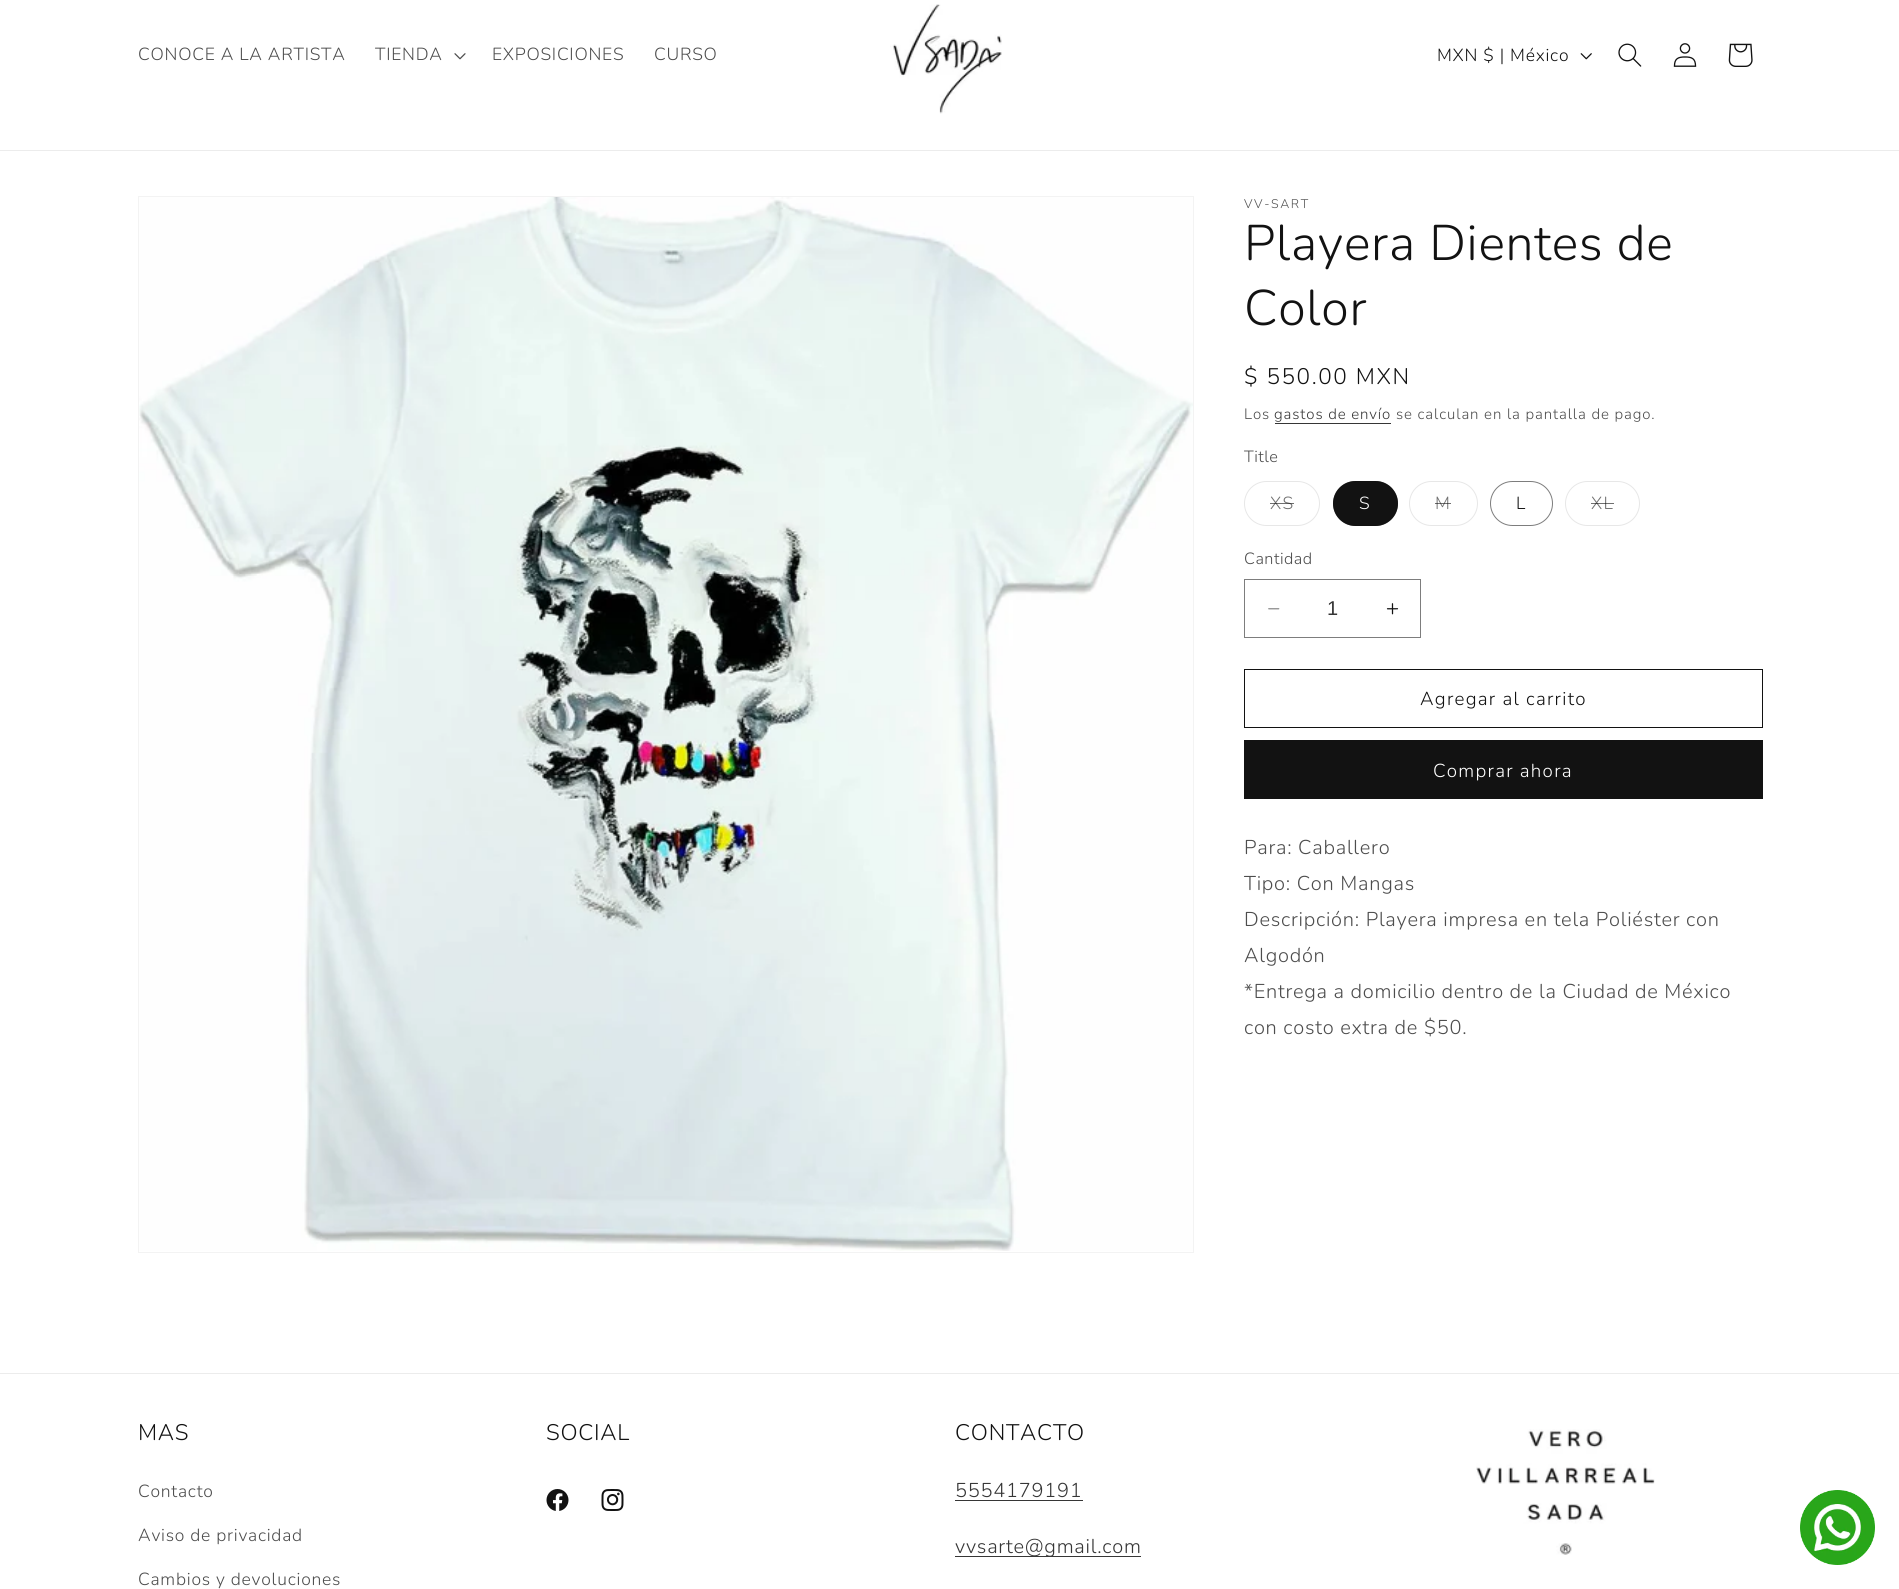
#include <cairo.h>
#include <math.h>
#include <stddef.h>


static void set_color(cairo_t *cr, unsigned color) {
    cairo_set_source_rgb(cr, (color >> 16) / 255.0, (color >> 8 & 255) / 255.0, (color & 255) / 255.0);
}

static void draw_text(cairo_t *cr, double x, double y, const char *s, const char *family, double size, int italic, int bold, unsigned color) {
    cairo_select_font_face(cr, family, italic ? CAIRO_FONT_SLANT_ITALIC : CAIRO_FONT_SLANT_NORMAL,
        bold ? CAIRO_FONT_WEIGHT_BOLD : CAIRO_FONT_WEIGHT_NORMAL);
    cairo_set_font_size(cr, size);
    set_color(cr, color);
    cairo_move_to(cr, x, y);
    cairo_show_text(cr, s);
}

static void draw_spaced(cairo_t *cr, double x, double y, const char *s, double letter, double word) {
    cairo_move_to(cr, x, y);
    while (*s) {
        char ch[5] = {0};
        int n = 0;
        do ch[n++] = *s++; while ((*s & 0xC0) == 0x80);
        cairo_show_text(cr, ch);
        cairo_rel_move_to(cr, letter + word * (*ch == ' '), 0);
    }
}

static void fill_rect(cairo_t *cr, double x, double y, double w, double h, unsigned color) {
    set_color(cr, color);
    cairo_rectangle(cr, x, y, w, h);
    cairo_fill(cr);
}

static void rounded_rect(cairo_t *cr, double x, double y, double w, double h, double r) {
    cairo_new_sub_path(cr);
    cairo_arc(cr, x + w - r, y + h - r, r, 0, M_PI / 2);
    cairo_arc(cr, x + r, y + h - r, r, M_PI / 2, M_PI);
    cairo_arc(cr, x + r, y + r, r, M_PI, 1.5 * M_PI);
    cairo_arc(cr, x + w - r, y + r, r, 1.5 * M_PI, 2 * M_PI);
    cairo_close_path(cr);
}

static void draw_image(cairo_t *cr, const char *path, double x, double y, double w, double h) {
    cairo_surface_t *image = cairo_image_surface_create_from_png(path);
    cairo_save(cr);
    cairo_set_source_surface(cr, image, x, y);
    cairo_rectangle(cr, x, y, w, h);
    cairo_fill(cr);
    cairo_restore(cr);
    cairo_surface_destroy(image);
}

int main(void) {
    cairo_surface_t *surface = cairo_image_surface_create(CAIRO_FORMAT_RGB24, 1899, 1589);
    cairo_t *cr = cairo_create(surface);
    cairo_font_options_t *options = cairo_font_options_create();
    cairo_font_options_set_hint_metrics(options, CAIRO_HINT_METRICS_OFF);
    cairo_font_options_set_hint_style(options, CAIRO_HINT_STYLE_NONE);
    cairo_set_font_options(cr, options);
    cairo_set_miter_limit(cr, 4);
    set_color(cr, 0xFFFFFF);
    cairo_paint(cr);
    fill_rect(cr, 0, 150, 1899, 1, 0xECECEC);
    cairo_select_font_face(cr, "Nunito Light", CAIRO_FONT_SLANT_NORMAL, CAIRO_FONT_WEIGHT_NORMAL);
    cairo_set_font_size(cr, 17.5);
    set_color(cr, 0x4D4D4D);
    draw_spaced(cr, 138, 60, "CONOCE A LA ARTISTA", 0.75, 0);
    draw_spaced(cr, 375, 60, "TIENDA", 0.75, 0);
    draw_image(cr, "assets/img1.png", 454, 53, 12, 7);
    draw_spaced(cr, 492, 60, "EXPOSICIONES", 0.75, 0);
    draw_spaced(cr, 654, 60, "CURSO", 0.75, 0);
    draw_image(cr, "assets/img2.png", 890, 4, 112, 110);
    set_color(cr, 0x121212);
    draw_spaced(cr, 1437, 61, "MXN $ | México", 0.75, 0);
    draw_image(cr, "assets/img3.png", 1580, 53, 12, 7);
    draw_image(cr, "assets/img4.png", 1618, 43, 24, 24);
    draw_image(cr, "assets/img5.png", 1673, 43, 24, 24);
    draw_image(cr, "assets/img6.png", 1728, 43, 25, 24);
    cairo_rectangle(cr, 138.5, 196.5, 1055, 1056);
    set_color(cr, 0xF3F3F3);
    cairo_set_line_width(cr, 1);
    cairo_stroke(cr);
    draw_image(cr, "assets/img7.png", 139, 197, 1054, 1054);
    cairo_set_font_size(cr, 12.5);
    set_color(cr, 0x4D4D4D);
    draw_spaced(cr, 1244, 208, "VV-SART", 1.6, 0);
    cairo_set_font_size(cr, 50);
    set_color(cr, 0x121212);
    draw_spaced(cr, 1244, 260, "Playera Dientes de", 0.75, 0);
    draw_spaced(cr, 1244, 325, "Color", 0.75, 0);
    cairo_set_font_size(cr, 22.5);
    draw_spaced(cr, 1244, 384, "$ 550.00 MXN", 1.6, 0);
    cairo_set_font_size(cr, 15);
    set_color(cr, 0x4D4D4D);
    draw_spaced(cr, 1244, 419, "Los", 0.9, 0);
    set_color(cr, 0x363636);
    draw_spaced(cr, 1274, 419, "gastos de envío", 0.9, 0);
    fill_rect(cr, 1275, 423, 116, 1, 0x363636);
    set_color(cr, 0x4D4D4D);
    draw_spaced(cr, 1396, 419, "se calculan en la pantalla de pago.", 0.9, 0);
    cairo_set_font_size(cr, 16.25);
    draw_spaced(cr, 1244, 462, "Title", 0.5, 0);
    rounded_rect(cr, 1244.5, 481.5, 75, 44, 22);
    set_color(cr, 0xE7E7E7);
    cairo_stroke(cr);
    cairo_set_font_size(cr, 17.5);
    set_color(cr, 0x717171);
    draw_spaced(cr, 1270, 509, "XS", 1.25, 0);
    cairo_set_source_rgba(cr, 0.071, 0.071, 0.071, 0.6);
    cairo_rectangle(cr, 1270, 503, 24, 1);
    cairo_fill(cr);
    set_color(cr, 0x121212);
    rounded_rect(cr, 1333, 481, 65, 45, 22.5);
    cairo_fill(cr);
    rounded_rect(cr, 1333.5, 481.5, 64, 44, 22);
    cairo_set_source_rgba(cr, 0.071, 0.071, 0.071, 0.55);
    cairo_stroke(cr);
    set_color(cr, 0xFFFFFF);
    draw_spaced(cr, 1359, 509, "S", 1.25, 0);
    rounded_rect(cr, 1409.5, 481.5, 68, 44, 22);
    set_color(cr, 0xE7E7E7);
    cairo_stroke(cr);
    set_color(cr, 0x717171);
    draw_spaced(cr, 1435, 509, "M", 1.25, 0);
    cairo_set_source_rgba(cr, 0.071, 0.071, 0.071, 0.6);
    cairo_rectangle(cr, 1435, 503, 16, 1);
    cairo_fill(cr);
    rounded_rect(cr, 1490.5, 481.5, 62, 44, 22);
    set_color(cr, 0x7D7D7D);
    cairo_stroke(cr);
    set_color(cr, 0x121212);
    draw_spaced(cr, 1516, 509, "L", 1.25, 0);
    rounded_rect(cr, 1565.5, 481.5, 74, 44, 22);
    set_color(cr, 0xE7E7E7);
    cairo_stroke(cr);
    set_color(cr, 0x717171);
    draw_spaced(cr, 1591, 509, "XL", 1.25, 0);
    cairo_set_source_rgba(cr, 0.071, 0.071, 0.071, 0.6);
    cairo_rectangle(cr, 1591, 503, 23, 1);
    cairo_fill(cr);
    cairo_set_font_size(cr, 16.25);
    set_color(cr, 0x4D4D4D);
    draw_spaced(cr, 1244, 564, "Cantidad", 0.5, 0);
    draw_image(cr, "assets/img8.png", 1268, 608, 12, 2);
    draw_image(cr, "assets/img9.png", 1386, 603, 13, 12);
    cairo_rectangle(cr, 1244.5, 579.5, 176, 58);
    set_color(cr, 0x7D7D7D);
    cairo_stroke(cr);
    draw_text(cr, 1327, 615, "1", "Liberation Sans", 20, 0, 0, 0x363636);
    cairo_rectangle(cr, 1244.5, 669.5, 518, 58);
    set_color(cr, 0x121212);
    cairo_stroke(cr);
    cairo_select_font_face(cr, "Nunito Light", CAIRO_FONT_SLANT_NORMAL, CAIRO_FONT_WEIGHT_NORMAL);
    cairo_set_font_size(cr, 18.75);
    draw_spaced(cr, 1420, 705, "Agregar al carrito", 1.25, 0);
    fill_rect(cr, 1244, 740, 519, 59, 0x121212);
    set_color(cr, 0xFFFFFF);
    draw_spaced(cr, 1433, 777, "Comprar ahora", 1.25, 0);
    cairo_set_font_size(cr, 20);
    set_color(cr, 0x4D4D4D);
    draw_spaced(cr, 1244, 854, "Para: Caballero", 0.75, 0);
    draw_spaced(cr, 1244, 890, "Tipo: Con Mangas", 0.75, 0);
    draw_spaced(cr, 1244, 926, "Descripción: Playera impresa en tela Poliéster con", 0.75, 0);
    draw_spaced(cr, 1244, 962, "Algodón", 0.75, 0);
    draw_spaced(cr, 1244, 998, "*Entrega a domicilio dentro de la Ciudad de México", 0.75, 0);
    draw_spaced(cr, 1244, 1034, "con costo extra de $50.", 0.75, 0);
    fill_rect(cr, 0, 1373, 1899, 1, 0xECECEC);
    cairo_set_font_size(cr, 22.5);
    set_color(cr, 0x121212);
    draw_spaced(cr, 138, 1440, "MAS", 0.75, 0);
    cairo_set_font_size(cr, 17.5);
    set_color(cr, 0x4D4D4D);
    draw_spaced(cr, 138, 1497, "Contacto", 0.75, 0);
    draw_spaced(cr, 138, 1541, "Aviso de privacidad", 0.75, 0);
    draw_spaced(cr, 138, 1585, "Cambios y devoluciones", 0.75, 0);
    cairo_set_font_size(cr, 22.5);
    set_color(cr, 0x121212);
    draw_spaced(cr, 546, 1440, "SOCIAL", 0.75, 0);
    draw_image(cr, "assets/img10.png", 546, 1489, 23, 22);
    draw_image(cr, "assets/img11.png", 601, 1489, 23, 22);
    draw_spaced(cr, 955, 1440, "CONTACTO", 0.75, 0);
    cairo_set_font_size(cr, 20);
    set_color(cr, 0x363636);
    draw_spaced(cr, 955, 1497, "5554179191", 0.75, 0);
    fill_rect(cr, 955, 1500, 128, 1, 0x363636);
    fill_rect(cr, 955, 1556, 186, 1, 0x363636);
    draw_spaced(cr, 955, 1553, "vvsarte@gmail.com", 0.75, 0);
    draw_image(cr, "assets/img12.png", 1476, 1429, 179, 126);
    draw_image(cr, "assets/img13.png", 1800, 1490, 75, 75);
    cairo_surface_write_to_png(surface, "output.png");
    cairo_font_options_destroy(options);
    cairo_destroy(cr);
    cairo_surface_destroy(surface);
    return 0;
}
